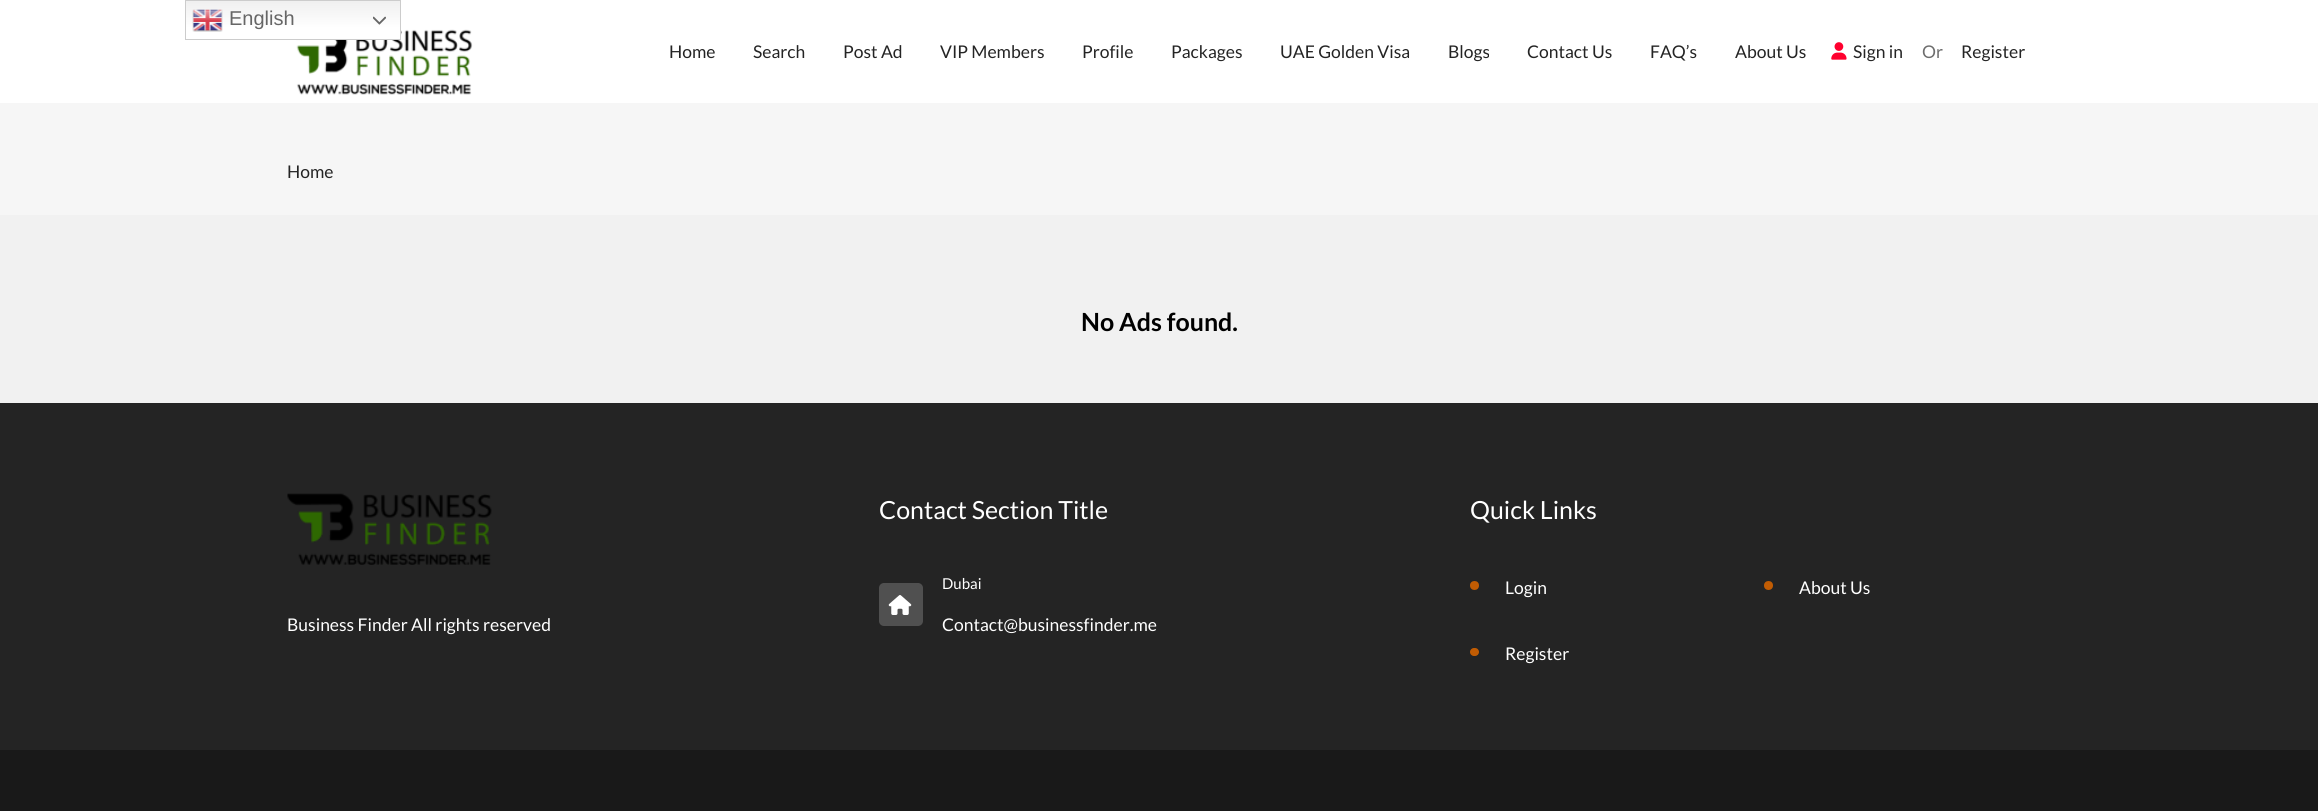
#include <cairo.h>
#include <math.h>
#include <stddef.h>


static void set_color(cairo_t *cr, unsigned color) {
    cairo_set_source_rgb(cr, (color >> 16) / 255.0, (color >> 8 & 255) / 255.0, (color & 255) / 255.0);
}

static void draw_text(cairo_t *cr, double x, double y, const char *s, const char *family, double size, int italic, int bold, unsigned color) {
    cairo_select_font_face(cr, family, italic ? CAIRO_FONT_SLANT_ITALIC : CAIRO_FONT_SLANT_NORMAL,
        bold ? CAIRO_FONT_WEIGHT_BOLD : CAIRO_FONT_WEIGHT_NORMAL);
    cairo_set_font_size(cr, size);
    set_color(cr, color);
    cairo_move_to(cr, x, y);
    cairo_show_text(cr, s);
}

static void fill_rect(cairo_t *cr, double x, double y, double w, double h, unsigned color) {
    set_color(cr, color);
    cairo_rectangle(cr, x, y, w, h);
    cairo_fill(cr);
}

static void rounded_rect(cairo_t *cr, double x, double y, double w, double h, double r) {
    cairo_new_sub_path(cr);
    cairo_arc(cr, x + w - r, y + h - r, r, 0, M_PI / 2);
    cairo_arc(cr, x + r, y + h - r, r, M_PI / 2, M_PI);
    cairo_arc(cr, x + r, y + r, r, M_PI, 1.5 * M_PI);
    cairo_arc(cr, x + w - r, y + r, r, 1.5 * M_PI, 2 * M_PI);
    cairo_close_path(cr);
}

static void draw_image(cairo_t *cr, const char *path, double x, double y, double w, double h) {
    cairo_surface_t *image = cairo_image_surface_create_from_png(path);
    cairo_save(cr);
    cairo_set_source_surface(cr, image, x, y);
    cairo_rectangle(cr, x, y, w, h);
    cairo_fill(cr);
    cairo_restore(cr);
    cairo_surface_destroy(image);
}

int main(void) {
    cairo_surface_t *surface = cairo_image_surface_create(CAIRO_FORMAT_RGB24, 2318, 811);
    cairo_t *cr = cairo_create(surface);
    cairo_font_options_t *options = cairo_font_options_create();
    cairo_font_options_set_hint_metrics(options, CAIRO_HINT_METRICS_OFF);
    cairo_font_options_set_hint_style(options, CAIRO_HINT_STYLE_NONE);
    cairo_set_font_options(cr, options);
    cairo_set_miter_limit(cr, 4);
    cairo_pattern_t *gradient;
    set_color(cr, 0xF6F6F6);
    cairo_paint(cr);
    fill_rect(cr, 0, 0, 2318, 103, 0xFFFFFF);
    draw_image(cr, "assets/img3.png", 296, 29, 177, 66);
    gradient = cairo_pattern_create_linear(293, 0, 293, 40);
    cairo_pattern_add_color_stop_rgba(gradient, 0, 0.937, 0.937, 0.937, 1);
    cairo_pattern_add_color_stop_rgba(gradient, 0.7, 1, 1, 1, 1);
    cairo_set_source(cr, gradient);
    cairo_pattern_destroy(gradient);
    cairo_rectangle(cr, 186, 1, 214, 38);
    cairo_fill(cr);
    cairo_rectangle(cr, 185.5, 0.5, 215, 39);
    set_color(cr, 0xCCCCCC);
    cairo_set_line_width(cr, 1);
    cairo_stroke(cr);
    draw_image(cr, "assets/img1.png", 192, 9, 31, 23);
    draw_text(cr, 229, 25, "English", "Liberation Sans", 20, 0, 0, 0x666666);
    draw_image(cr, "assets/img2.png", 373, 16, 13, 9);
    draw_text(cr, 669, 58, "Home", "Lato", 17.5, 0, 0, 0x242424);
    draw_text(cr, 753, 58, "Search", "Lato", 17.5, 0, 0, 0x242424);
    draw_text(cr, 843, 58, "Post Ad", "Lato", 17.5, 0, 0, 0x242424);
    draw_text(cr, 940, 58, "VIP Members", "Lato", 17.5, 0, 0, 0x242424);
    draw_text(cr, 1082, 58, "Profile", "Lato", 17.5, 0, 0, 0x242424);
    draw_text(cr, 1171, 58, "Packages", "Lato", 17.5, 0, 0, 0x242424);
    draw_text(cr, 1280, 58, "UAE Golden Visa", "Lato", 17.5, 0, 0, 0x242424);
    draw_text(cr, 1448, 58, "Blogs", "Lato", 17.5, 0, 0, 0x242424);
    draw_text(cr, 1527, 58, "Contact Us", "Lato", 17.5, 0, 0, 0x242424);
    draw_text(cr, 1650, 58, "FAQ’s", "Lato", 17.5, 0, 0, 0x242424);
    draw_text(cr, 1735, 58, "About Us", "Lato", 17.5, 0, 0, 0x242424);
    draw_image(cr, "assets/img4.png", 1831, 42, 16, 18);
    draw_text(cr, 1853, 58, "Sign in", "Lato", 17.5, 0, 0, 0x242424);
    draw_text(cr, 1922, 58, "Or", "Lato", 17.5, 0, 0, 0x6D6D6D);
    draw_text(cr, 1961, 58, "Register", "Lato", 17.5, 0, 0, 0x242424);
    draw_text(cr, 287, 178, "Home", "Lato", 17.5, 0, 0, 0x242424);
    fill_rect(cr, 0, 215, 2318, 188, 0xF1F1F1);
    draw_text(cr, 1081, 331, "No Ads found.", "Lato", 25, 0, 1, 0x000000);
    fill_rect(cr, 0, 403, 2318, 347, 0x242424);
    draw_image(cr, "assets/img5.png", 287, 493, 205, 72);
    draw_text(cr, 287, 631, "Business Finder All rights reserved", "Lato", 17.5, 0, 0, 0xFFFFFF);
    draw_text(cr, 879, 519, "Contact Section Title", "Lato", 25, 0, 0, 0xFFFFFF);
    set_color(cr, 0x505050);
    rounded_rect(cr, 879, 583, 44, 43, 5);
    cairo_fill(cr);
    draw_image(cr, "assets/img6.png", 888, 595, 24, 20);
    draw_text(cr, 942, 589, "Dubai", "Lato", 15, 0, 0, 0xFFFFFF);
    draw_text(cr, 942, 631, "Contact@businessfinder.me", "Lato", 17.5, 0, 0, 0xFFFFFF);
    draw_text(cr, 1470, 519, "Quick Links", "Lato", 25, 0, 0, 0xFFFFFF);
    set_color(cr, 0xC15C03);
    cairo_new_path(cr);
    cairo_arc(cr, 1474.5, 585.5, 4.5, 0, 2 * M_PI);
    cairo_fill(cr);
    draw_text(cr, 1505, 594, "Login", "Lato", 17.5, 0, 0, 0xFFFFFF);
    set_color(cr, 0xC15C03);
    cairo_new_path(cr);
    cairo_arc(cr, 1768.5, 585.5, 4.5, 0, 2 * M_PI);
    cairo_fill(cr);
    draw_text(cr, 1799, 594, "About Us", "Lato", 17.5, 0, 0, 0xFFFFFF);
    set_color(cr, 0xC15C03);
    rounded_rect(cr, 1470, 648, 9, 8, 4);
    cairo_fill(cr);
    draw_text(cr, 1505, 660, "Register", "Lato", 17.5, 0, 0, 0xFFFFFF);
    fill_rect(cr, 0, 750, 2318, 61, 0x191919);
    cairo_surface_write_to_png(surface, "output.png");
    cairo_font_options_destroy(options);
    cairo_destroy(cr);
    cairo_surface_destroy(surface);
    return 0;
}
